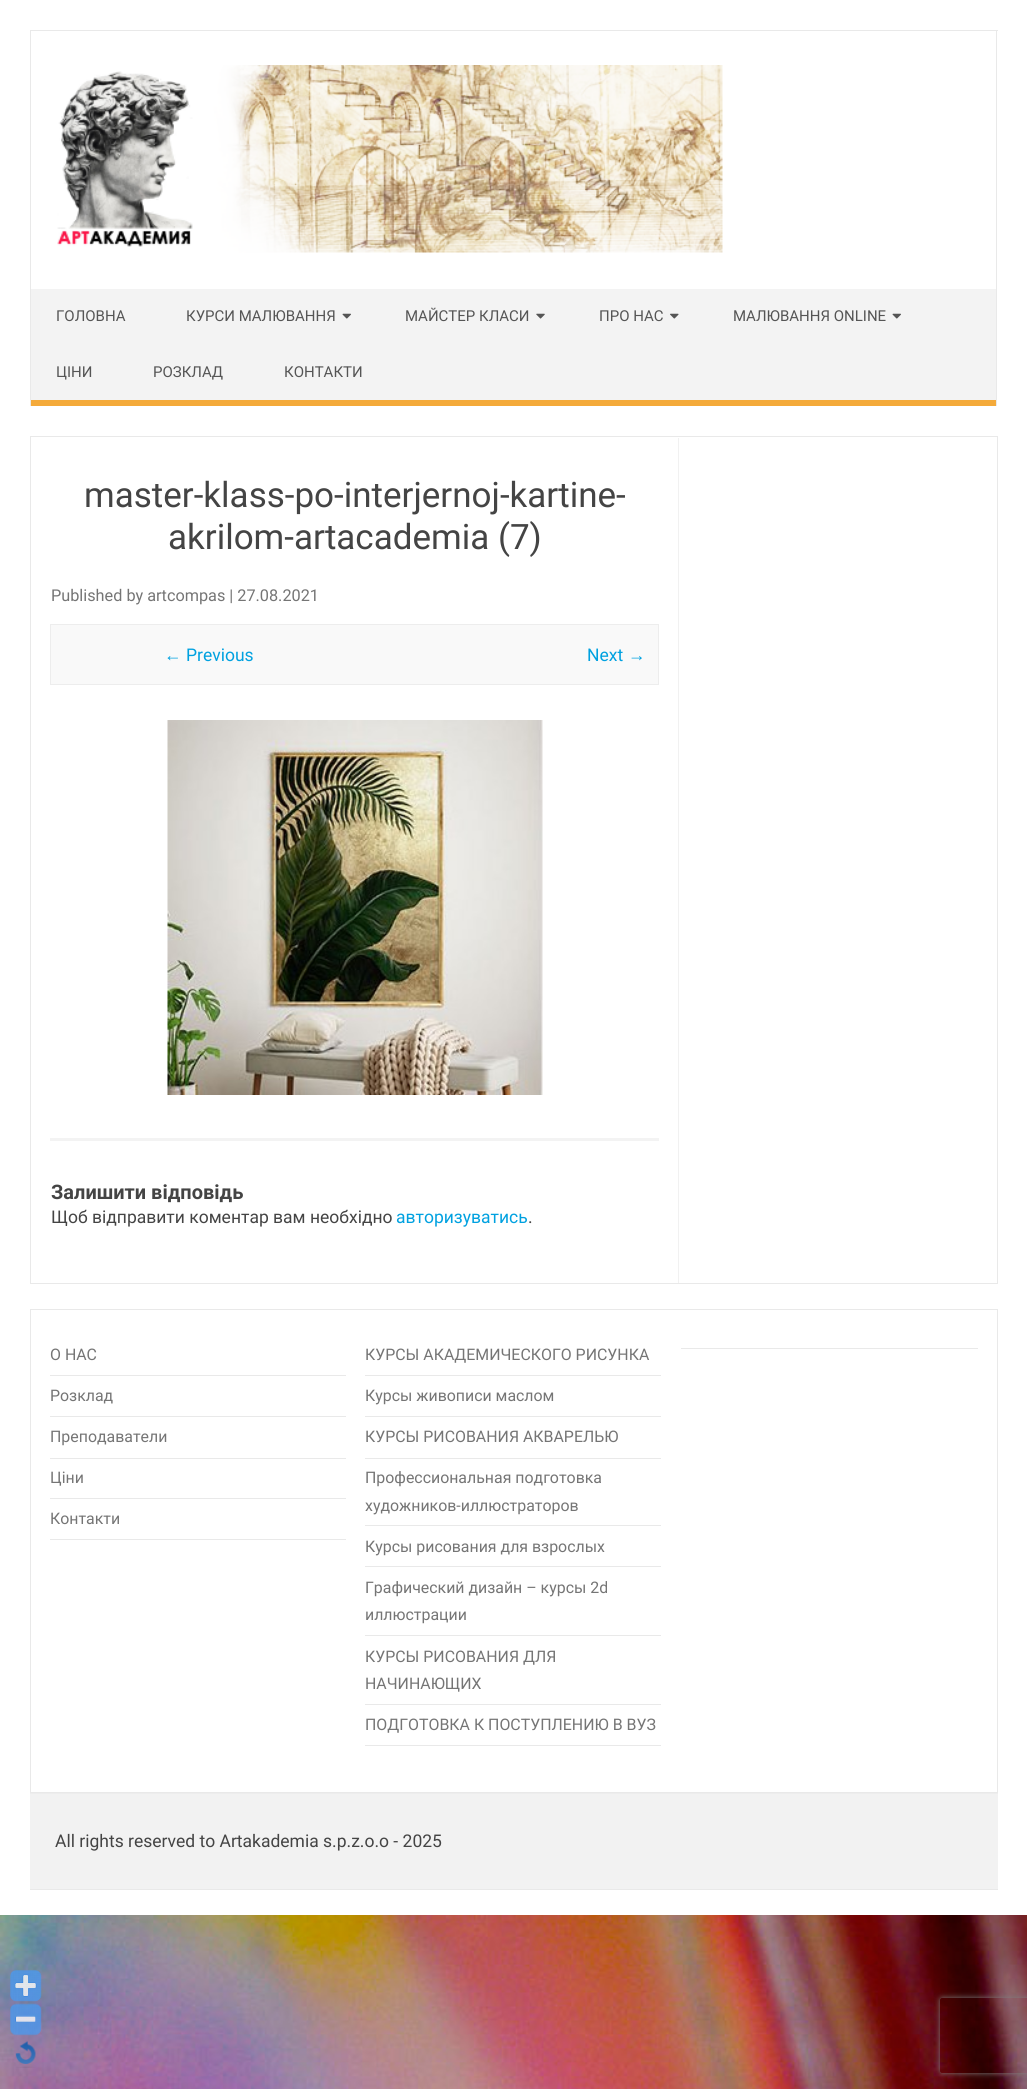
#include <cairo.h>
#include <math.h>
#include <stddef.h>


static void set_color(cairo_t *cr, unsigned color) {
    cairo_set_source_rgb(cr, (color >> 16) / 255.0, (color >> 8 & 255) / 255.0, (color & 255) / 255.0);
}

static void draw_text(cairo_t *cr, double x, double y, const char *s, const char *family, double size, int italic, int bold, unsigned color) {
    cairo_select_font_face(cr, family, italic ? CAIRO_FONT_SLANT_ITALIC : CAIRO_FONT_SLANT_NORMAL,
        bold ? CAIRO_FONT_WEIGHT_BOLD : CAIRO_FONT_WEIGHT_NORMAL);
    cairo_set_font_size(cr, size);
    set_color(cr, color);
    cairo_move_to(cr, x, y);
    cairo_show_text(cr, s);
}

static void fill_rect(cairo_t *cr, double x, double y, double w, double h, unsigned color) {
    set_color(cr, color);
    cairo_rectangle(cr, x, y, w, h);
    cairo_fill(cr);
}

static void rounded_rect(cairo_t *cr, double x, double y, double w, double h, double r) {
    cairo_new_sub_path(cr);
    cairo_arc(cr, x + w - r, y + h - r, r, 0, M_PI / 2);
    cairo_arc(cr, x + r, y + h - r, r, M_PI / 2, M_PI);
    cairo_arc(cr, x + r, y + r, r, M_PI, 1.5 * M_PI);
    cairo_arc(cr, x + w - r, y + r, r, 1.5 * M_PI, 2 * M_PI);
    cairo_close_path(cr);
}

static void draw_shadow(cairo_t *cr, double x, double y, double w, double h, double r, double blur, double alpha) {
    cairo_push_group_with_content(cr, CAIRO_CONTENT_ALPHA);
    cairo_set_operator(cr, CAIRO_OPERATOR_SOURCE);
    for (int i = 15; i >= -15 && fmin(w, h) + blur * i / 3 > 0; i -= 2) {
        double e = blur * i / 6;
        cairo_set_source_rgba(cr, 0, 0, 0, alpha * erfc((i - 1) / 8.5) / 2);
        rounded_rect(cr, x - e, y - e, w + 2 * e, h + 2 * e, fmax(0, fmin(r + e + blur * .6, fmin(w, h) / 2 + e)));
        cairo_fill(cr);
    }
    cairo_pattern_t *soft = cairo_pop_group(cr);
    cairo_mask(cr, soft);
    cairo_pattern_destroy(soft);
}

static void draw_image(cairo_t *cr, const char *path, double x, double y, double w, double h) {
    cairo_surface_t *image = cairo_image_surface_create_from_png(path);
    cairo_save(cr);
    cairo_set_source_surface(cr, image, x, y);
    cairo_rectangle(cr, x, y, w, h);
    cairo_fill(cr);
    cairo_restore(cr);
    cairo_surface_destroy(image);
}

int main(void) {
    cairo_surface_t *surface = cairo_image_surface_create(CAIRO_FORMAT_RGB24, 1027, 2089);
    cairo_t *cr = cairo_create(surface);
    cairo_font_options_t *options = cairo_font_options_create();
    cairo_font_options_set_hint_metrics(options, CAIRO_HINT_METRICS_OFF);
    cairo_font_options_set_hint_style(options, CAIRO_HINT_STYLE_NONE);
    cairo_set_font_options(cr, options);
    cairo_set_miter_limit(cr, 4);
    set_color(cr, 0xFFFFFF);
    cairo_paint(cr);
    draw_image(cr, "assets/img1.png", 0, 1915, 1027, 174);
    fill_rect(cr, 30, 30, 968, 1, 0xE9E9E9);
    fill_rect(cr, 996, 30, 1, 376, 0xE9E9E9);
    fill_rect(cr, 30, 30, 1, 376, 0xE9E9E9);
    draw_image(cr, "assets/img2.png", 57, 65, 666, 188);
    fill_rect(cr, 31, 289, 965, 111, 0xF3F3F3);
    fill_rect(cr, 31, 400, 965, 6, 0xF4AA3A);
    draw_text(cr, 56, 321, "ГОЛОВНА", "Roboto", 15, 0, 0, 0x555555);
    draw_text(cr, 186, 321, "КУРСИ МАЛЮВАННЯ", "Roboto", 15, 0, 0, 0x555555);
    draw_image(cr, "assets/img3.png", 342, 313, 9, 6);
    draw_text(cr, 405, 321, "МАЙСТЕР КЛАСИ", "Roboto", 15, 0, 0, 0x555555);
    draw_image(cr, "assets/img4.png", 536, 313, 9, 6);
    draw_text(cr, 599, 321, "ПРО НАС", "Roboto", 15, 0, 0, 0x555555);
    draw_image(cr, "assets/img5.png", 670, 313, 9, 6);
    draw_text(cr, 733, 321, "МАЛЮВАННЯ ONLINE", "Roboto", 15, 0, 0, 0x555555);
    draw_image(cr, "assets/img3.png", 892, 313, 9, 6);
    draw_text(cr, 56, 377, "ЦІНИ", "Roboto", 15, 0, 0, 0x555555);
    draw_text(cr, 153, 377, "РОЗКЛАД", "Roboto", 15, 0, 0, 0x555555);
    draw_text(cr, 284, 377, "КОНТАКТИ", "Roboto", 15, 0, 0, 0x555555);
    cairo_rectangle(cr, 30.5, 436.5, 967, 847);
    set_color(cr, 0xE9E9E9);
    cairo_set_line_width(cr, 1);
    cairo_stroke(cr);
    fill_rect(cr, 678, 438, 1, 845, 0xF1F1F1);
    fill_rect(cr, 50, 1138, 609, 3, 0xF3F3F3);
    draw_text(cr, 84, 507, "master-klass-po-interjernoj-kartine-", "Roboto", 35, 0, 0, 0x444444);
    draw_text(cr, 168, 549, "akrilom-artacademia (7)", "Roboto", 35, 0, 0, 0x444444);
    draw_text(cr, 51, 601, "Published by artcompas | 27.08.2021", "Roboto", 16.25, 0, 0, 0x757575);
    set_color(cr, 0xF9F9F9);
    cairo_rectangle(cr, 50.5, 624.5, 608, 60);
    cairo_fill_preserve(cr);
    set_color(cr, 0xEDEDED);
    cairo_stroke(cr);
    draw_text(cr, 164, 661, "←", "Liberation Sans", 17.5, 0, 0, 0x00A1E0);
    draw_text(cr, 186, 661, "Previous", "Roboto", 17.5, 0, 0, 0x00A1E0);
    draw_text(cr, 587, 661, "Next", "Roboto", 17.5, 0, 0, 0x00A1E0);
    draw_text(cr, 628, 661, "→", "Liberation Sans", 17.5, 0, 0, 0x00A1E0);
    draw_image(cr, "assets/img6.png", 167, 720, 376, 375);
    draw_text(cr, 51, 1199, "Залишити відповідь", "Roboto", 20, 0, 1, 0x444444);
    draw_text(cr, 51, 1223, "Щоб відправити коментар вам необхідно", "Roboto", 17.5, 0, 0, 0x444444);
    draw_text(cr, 396, 1223, "авторизуватись", "Roboto", 17.5, 0, 0, 0x00A1E0);
    draw_text(cr, 528, 1223, ".", "Roboto", 17.5, 0, 0, 0x444444);
    cairo_rectangle(cr, 30.5, 1309.5, 967, 483);
    set_color(cr, 0xE9E9E9);
    cairo_stroke(cr);
    fill_rect(cr, 50, 1375, 296, 1, 0xE9E9E9);
    draw_text(cr, 50, 1360, "О НАС", "Roboto", 15.9, 0, 0, 0x757575);
    fill_rect(cr, 50, 1416, 296, 1, 0xE9E9E9);
    draw_text(cr, 50, 1401, "Розклад", "Roboto", 15.9, 0, 0, 0x757575);
    fill_rect(cr, 50, 1458, 296, 1, 0xE9E9E9);
    draw_text(cr, 50, 1442, "Преподаватели", "Roboto", 15.9, 0, 0, 0x757575);
    fill_rect(cr, 50, 1498, 296, 1, 0xE9E9E9);
    draw_text(cr, 50, 1483, "Ціни", "Roboto", 15.9, 0, 0, 0x757575);
    fill_rect(cr, 50, 1539, 296, 1, 0xE9E9E9);
    draw_text(cr, 50, 1524, "Контакти", "Roboto", 15.9, 0, 0, 0x757575);
    fill_rect(cr, 365, 1375, 296, 1, 0xE9E9E9);
    draw_text(cr, 365, 1360, "КУРСЫ АКАДЕМИЧЕСКОГО РИСУНКА", "Roboto", 15.9, 0, 0, 0x757575);
    fill_rect(cr, 365, 1416, 296, 1, 0xE9E9E9);
    draw_text(cr, 365, 1401, "Курсы живописи маслом", "Roboto", 15.9, 0, 0, 0x757575);
    fill_rect(cr, 365, 1458, 296, 1, 0xE9E9E9);
    draw_text(cr, 365, 1442, "КУРСЫ РИСОВАНИЯ АКВАРЕЛЬЮ", "Roboto", 15.9, 0, 0, 0x757575);
    fill_rect(cr, 365, 1525, 296, 1, 0xE9E9E9);
    draw_text(cr, 365, 1483, "Профессиональная подготовка", "Roboto", 15.9, 0, 0, 0x757575);
    draw_text(cr, 365, 1511, "художников-иллюстраторов", "Roboto", 15.9, 0, 0, 0x757575);
    fill_rect(cr, 365, 1566, 296, 1, 0xE9E9E9);
    draw_text(cr, 365, 1552, "Курсы рисования для взрослых", "Roboto", 15.9, 0, 0, 0x757575);
    fill_rect(cr, 365, 1635, 296, 1, 0xE9E9E9);
    draw_text(cr, 365, 1593, "Графический дизайн – курсы 2d", "Roboto", 15.9, 0, 0, 0x757575);
    draw_text(cr, 365, 1620, "иллюстрации", "Roboto", 15.9, 0, 0, 0x757575);
    fill_rect(cr, 365, 1704, 296, 1, 0xE9E9E9);
    draw_text(cr, 365, 1662, "КУРСЫ РИСОВАНИЯ ДЛЯ", "Roboto", 15.9, 0, 0, 0x757575);
    draw_text(cr, 365, 1689, "НАЧИНАЮЩИХ", "Roboto", 15.9, 0, 0, 0x757575);
    fill_rect(cr, 365, 1745, 296, 1, 0xE9E9E9);
    draw_text(cr, 365, 1730, "ПОДГОТОВКА К ПОСТУПЛЕНИЮ В ВУЗ", "Roboto", 15.9, 0, 0, 0x757575);
    fill_rect(cr, 681, 1348, 297, 1, 0xE9E9E9);
    fill_rect(cr, 30, 1794, 968, 95, 0xF2F2F2);
    fill_rect(cr, 30, 1793, 968, 1, 0xEDEDED);
    fill_rect(cr, 30, 1889, 968, 1, 0xE9E9E9);
    draw_text(cr, 55, 1847, "All rights reserved to Artakademia s.p.z.o.o - 2025", "Roboto", 17.5, 0, 0, 0x444444);
    draw_image(cr, "assets/img7.png", 10, 1970, 32, 32);
    draw_image(cr, "assets/img8.png", 10, 2003, 32, 33);
    draw_image(cr, "assets/img9.png", 15, 2041, 21, 27);
    cairo_save(cr);
    cairo_set_fill_rule(cr, CAIRO_FILL_RULE_EVEN_ODD);
    cairo_new_path(cr);
    cairo_move_to(cr, 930, 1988);
    cairo_line_to(cr, 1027, 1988);
    cairo_line_to(cr, 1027, 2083);
    cairo_line_to(cr, 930, 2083);
    cairo_close_path(cr);
    cairo_move_to(cr, 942.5, 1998);
    cairo_line_to(cr, 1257.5, 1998);
    cairo_curve_to(cr, 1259, 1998, 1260, 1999, 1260, 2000.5);
    cairo_line_to(cr, 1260, 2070.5);
    cairo_curve_to(cr, 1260, 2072, 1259, 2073, 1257.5, 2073);
    cairo_line_to(cr, 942.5, 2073);
    cairo_curve_to(cr, 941, 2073, 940, 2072, 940, 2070.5);
    cairo_line_to(cr, 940, 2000.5);
    cairo_curve_to(cr, 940, 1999, 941, 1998, 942.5, 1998);
    cairo_close_path(cr);
    cairo_clip(cr);
    set_color(cr, 0x808080);
    draw_shadow(cr, 940, 1998, 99, 75, 2.5, 3, 1);
    cairo_restore(cr);
    cairo_surface_write_to_png(surface, "output.png");
    cairo_font_options_destroy(options);
    cairo_destroy(cr);
    cairo_surface_destroy(surface);
    return 0;
}
